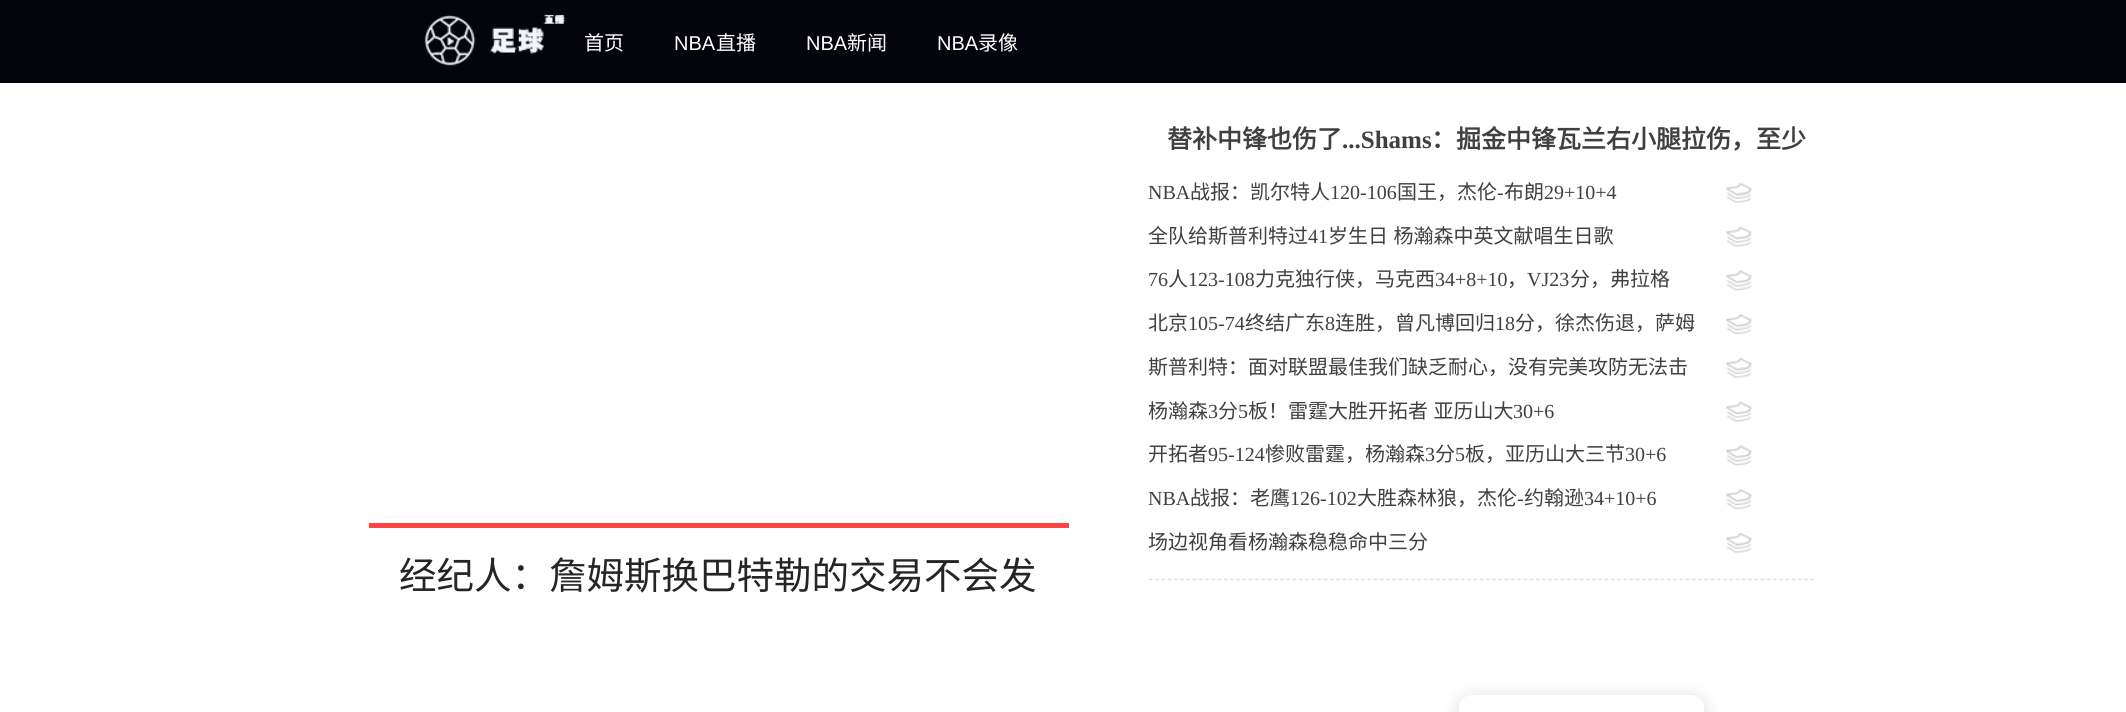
#include <cairo.h>
#include <math.h>
#include <stddef.h>


static void set_color(cairo_t *cr, unsigned color) {
    cairo_set_source_rgb(cr, (color >> 16) / 255.0, (color >> 8 & 255) / 255.0, (color & 255) / 255.0);
}

static void draw_text(cairo_t *cr, double x, double y, const char *s, const char *family, double size, int italic, int bold, unsigned color) {
    cairo_select_font_face(cr, family, italic ? CAIRO_FONT_SLANT_ITALIC : CAIRO_FONT_SLANT_NORMAL,
        bold ? CAIRO_FONT_WEIGHT_BOLD : CAIRO_FONT_WEIGHT_NORMAL);
    cairo_set_font_size(cr, size);
    set_color(cr, color);
    cairo_move_to(cr, x, y);
    cairo_show_text(cr, s);
}

static void draw_spaced(cairo_t *cr, double x, double y, const char *s, double letter, double word) {
    cairo_move_to(cr, x, y);
    while (*s) {
        char ch[5] = {0};
        int n = 0;
        do ch[n++] = *s++; while ((*s & 0xC0) == 0x80);
        cairo_show_text(cr, ch);
        cairo_rel_move_to(cr, letter + word * (*ch == ' '), 0);
    }
}

static void fill_rect(cairo_t *cr, double x, double y, double w, double h, unsigned color) {
    set_color(cr, color);
    cairo_rectangle(cr, x, y, w, h);
    cairo_fill(cr);
}

static void rounded_rect(cairo_t *cr, double x, double y, double w, double h, double r) {
    cairo_new_sub_path(cr);
    cairo_arc(cr, x + w - r, y + h - r, r, 0, M_PI / 2);
    cairo_arc(cr, x + r, y + h - r, r, M_PI / 2, M_PI);
    cairo_arc(cr, x + r, y + r, r, M_PI, 1.5 * M_PI);
    cairo_arc(cr, x + w - r, y + r, r, 1.5 * M_PI, 2 * M_PI);
    cairo_close_path(cr);
}

static void draw_shadow(cairo_t *cr, double x, double y, double w, double h, double r, double blur, double alpha) {
    cairo_push_group_with_content(cr, CAIRO_CONTENT_ALPHA);
    cairo_set_operator(cr, CAIRO_OPERATOR_SOURCE);
    for (int i = 15; i >= -15 && fmin(w, h) + blur * i / 3 > 0; i -= 2) {
        double e = blur * i / 6;
        cairo_set_source_rgba(cr, 0, 0, 0, alpha * erfc((i - 1) / 8.5) / 2);
        rounded_rect(cr, x - e, y - e, w + 2 * e, h + 2 * e, fmax(0, fmin(r + e + blur * .6, fmin(w, h) / 2 + e)));
        cairo_fill(cr);
    }
    cairo_pattern_t *soft = cairo_pop_group(cr);
    cairo_mask(cr, soft);
    cairo_pattern_destroy(soft);
}

static void draw_image(cairo_t *cr, const char *path, double x, double y, double w, double h) {
    cairo_surface_t *image = cairo_image_surface_create_from_png(path);
    cairo_save(cr);
    cairo_set_source_surface(cr, image, x, y);
    cairo_rectangle(cr, x, y, w, h);
    cairo_fill(cr);
    cairo_restore(cr);
    cairo_surface_destroy(image);
}

int main(void) {
    cairo_surface_t *surface = cairo_image_surface_create(CAIRO_FORMAT_RGB24, 2126, 712);
    cairo_t *cr = cairo_create(surface);
    cairo_font_options_t *options = cairo_font_options_create();
    cairo_font_options_set_hint_metrics(options, CAIRO_HINT_METRICS_OFF);
    cairo_font_options_set_hint_style(options, CAIRO_HINT_STYLE_NONE);
    cairo_set_font_options(cr, options);
    cairo_set_miter_limit(cr, 4);
    set_color(cr, 0xFFFFFF);
    cairo_paint(cr);
    fill_rect(cr, 0, 0, 2126, 83, 0x04040C);
    draw_image(cr, "assets/img1.png", 424, 14, 142, 52);
    draw_text(cr, 584, 50, "首页", "Noto Sans CJK SC", 20, 0, 0, 0xFFFFFF);
    draw_text(cr, 674, 50, "NBA", "Liberation Sans", 20, 0, 0, 0xFFFFFF);
    draw_text(cr, 716, 50, "直播", "Noto Sans CJK SC", 20, 0, 0, 0xFFFFFF);
    draw_text(cr, 806, 50, "NBA", "Liberation Sans", 20, 0, 0, 0xFFFFFF);
    draw_text(cr, 847, 50, "新闻", "Noto Sans CJK SC", 20, 0, 0, 0xFFFFFF);
    draw_text(cr, 937, 50, "NBA", "Liberation Sans", 20, 0, 0, 0xFFFFFF);
    draw_text(cr, 978, 50, "录像", "Noto Sans CJK SC", 20, 0, 0, 0xFFFFFF);
    cairo_new_path(cr);
    cairo_move_to(cr, 1149, 579.5);
    cairo_line_to(cr, 1814, 579.5);
    set_color(cr, 0xDCDCDC);
    cairo_set_line_width(cr, 1.2);
    cairo_set_dash(cr, (double[]){3.75, 2.49}, 2, 0);
    cairo_stroke(cr);
    draw_text(cr, 1167, 148, "替补中锋也伤了", "Noto Sans CJK SC", 25, 0, 1, 0x404040);
    draw_text(cr, 1342, 148, "...Shams", "Liberation Serif", 25, 0, 1, 0x404040);
    draw_text(cr, 1431, 148, "：掘金中锋瓦兰右小腿拉伤，至少", "Noto Sans CJK SC", 25, 0, 1, 0x404040);
    draw_text(cr, 1148, 199, "NBA", "Liberation Serif", 20, 0, 0, 0x404040);
    draw_text(cr, 1190, 199, "战报：凯尔特人", "Noto Sans CJK SC", 20, 0, 0, 0x404040);
    draw_text(cr, 1330, 199, "120-106", "Liberation Serif", 20, 0, 0, 0x404040);
    draw_text(cr, 1397, 199, "国王，杰伦", "Noto Sans CJK SC", 20, 0, 0, 0x404040);
    draw_text(cr, 1497, 199, "-", "Liberation Serif", 20, 0, 0, 0x404040);
    draw_text(cr, 1504, 199, "布朗", "Noto Sans CJK SC", 20, 0, 0, 0x404040);
    draw_text(cr, 1544, 199, "29+10+4", "Liberation Serif", 20, 0, 0, 0x404040);
    draw_image(cr, "assets/img2.png", 1726, 182, 26, 22);
    draw_text(cr, 1148, 243, "全队给斯普利特过", "Noto Sans CJK SC", 20, 0, 0, 0x404040);
    draw_text(cr, 1308, 243, "41", "Liberation Serif", 20, 0, 0, 0x404040);
    cairo_select_font_face(cr, "Noto Sans CJK SC", CAIRO_FONT_SLANT_NORMAL, CAIRO_FONT_WEIGHT_NORMAL);
    draw_spaced(cr, 1328, 243, "岁生日 杨瀚森中英文献唱生日歌", 0, 1);
    draw_image(cr, "assets/img3.png", 1726, 226, 26, 22);
    draw_text(cr, 1148, 286, "76", "Liberation Serif", 20, 0, 0, 0x404040);
    draw_text(cr, 1168, 286, "人", "Noto Sans CJK SC", 20, 0, 0, 0x404040);
    draw_text(cr, 1188, 286, "123-108", "Liberation Serif", 20, 0, 0, 0x404040);
    draw_text(cr, 1255, 286, "力克独行侠，马克西", "Noto Sans CJK SC", 20, 0, 0, 0x404040);
    draw_text(cr, 1435, 286, "34+8+10", "Liberation Serif", 20, 0, 0, 0x404040);
    draw_text(cr, 1507, 286, "，", "Noto Sans CJK SC", 20, 0, 0, 0x404040);
    draw_text(cr, 1527, 286, "VJ23", "Liberation Serif", 20, 0, 0, 0x404040);
    draw_text(cr, 1570, 286, "分，弗拉格", "Noto Sans CJK SC", 20, 0, 0, 0x404040);
    draw_image(cr, "assets/img4.png", 1726, 270, 26, 21);
    draw_text(cr, 1148, 330, "北京", "Noto Sans CJK SC", 20, 0, 0, 0x404040);
    draw_text(cr, 1188, 330, "105-74", "Liberation Serif", 20, 0, 0, 0x404040);
    draw_text(cr, 1245, 330, "终结广东", "Noto Sans CJK SC", 20, 0, 0, 0x404040);
    draw_text(cr, 1325, 330, "8", "Liberation Serif", 20, 0, 0, 0x404040);
    draw_text(cr, 1335, 330, "连胜，曾凡博回归", "Noto Sans CJK SC", 20, 0, 0, 0x404040);
    draw_text(cr, 1495, 330, "18", "Liberation Serif", 20, 0, 0, 0x404040);
    draw_text(cr, 1515, 330, "分，徐杰伤退，萨姆", "Noto Sans CJK SC", 20, 0, 0, 0x404040);
    draw_image(cr, "assets/img5.png", 1726, 314, 26, 21);
    draw_text(cr, 1148, 374, "斯普利特：面对联盟最佳我们缺乏耐心，没有完美攻防无法击", "Noto Sans CJK SC", 20, 0, 0, 0x404040);
    draw_image(cr, "assets/img2.png", 1726, 357, 26, 22);
    draw_text(cr, 1148, 418, "杨瀚森", "Noto Sans CJK SC", 20, 0, 0, 0x404040);
    draw_text(cr, 1208, 418, "3", "Liberation Serif", 20, 0, 0, 0x404040);
    draw_text(cr, 1218, 418, "分", "Noto Sans CJK SC", 20, 0, 0, 0x404040);
    draw_text(cr, 1238, 418, "5", "Liberation Serif", 20, 0, 0, 0x404040);
    cairo_select_font_face(cr, "Noto Sans CJK SC", CAIRO_FONT_SLANT_NORMAL, CAIRO_FONT_WEIGHT_NORMAL);
    draw_spaced(cr, 1248, 418, "板！雷霆大胜开拓者 亚历山大", 0, 1);
    draw_text(cr, 1513, 418, "30+6", "Liberation Serif", 20, 0, 0, 0x404040);
    draw_image(cr, "assets/img3.png", 1726, 401, 26, 22);
    draw_text(cr, 1148, 461, "开拓者", "Noto Sans CJK SC", 20, 0, 0, 0x404040);
    draw_text(cr, 1208, 461, "95-124", "Liberation Serif", 20, 0, 0, 0x404040);
    draw_text(cr, 1265, 461, "惨败雷霆，杨瀚森", "Noto Sans CJK SC", 20, 0, 0, 0x404040);
    draw_text(cr, 1425, 461, "3", "Liberation Serif", 20, 0, 0, 0x404040);
    draw_text(cr, 1435, 461, "分", "Noto Sans CJK SC", 20, 0, 0, 0x404040);
    draw_text(cr, 1455, 461, "5", "Liberation Serif", 20, 0, 0, 0x404040);
    draw_text(cr, 1465, 461, "板，亚历山大三节", "Noto Sans CJK SC", 20, 0, 0, 0x404040);
    draw_text(cr, 1625, 461, "30+6", "Liberation Serif", 20, 0, 0, 0x404040);
    draw_image(cr, "assets/img4.png", 1726, 445, 26, 21);
    draw_text(cr, 1148, 505, "NBA", "Liberation Serif", 20, 0, 0, 0x404040);
    draw_text(cr, 1190, 505, "战报：老鹰", "Noto Sans CJK SC", 20, 0, 0, 0x404040);
    draw_text(cr, 1290, 505, "126-102", "Liberation Serif", 20, 0, 0, 0x404040);
    draw_text(cr, 1357, 505, "大胜森林狼，杰伦", "Noto Sans CJK SC", 20, 0, 0, 0x404040);
    draw_text(cr, 1517, 505, "-", "Liberation Serif", 20, 0, 0, 0x404040);
    draw_text(cr, 1524, 505, "约翰逊", "Noto Sans CJK SC", 20, 0, 0, 0x404040);
    draw_text(cr, 1584, 505, "34+10+6", "Liberation Serif", 20, 0, 0, 0x404040);
    draw_image(cr, "assets/img5.png", 1726, 489, 26, 21);
    draw_text(cr, 1148, 549, "场边视角看杨瀚森稳稳命中三分", "Noto Sans CJK SC", 20, 0, 0, 0x404040);
    draw_image(cr, "assets/img2.png", 1726, 532, 26, 22);
    fill_rect(cr, 369, 523, 700, 5, 0xFC4444);
    draw_text(cr, 399, 589, "经纪人：詹姆斯换巴特勒的交易不会发", "Noto Sans CJK SC", 37.5, 0, 0, 0x252525);
    set_color(cr, 0x000000);
    draw_shadow(cr, 1459, 698, 245, 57, 13, 10, 0.15);
    set_color(cr, 0xFFFFFF);
    rounded_rect(cr, 1459, 695, 245, 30, 13);
    cairo_fill(cr);
    cairo_surface_write_to_png(surface, "output.png");
    cairo_font_options_destroy(options);
    cairo_destroy(cr);
    cairo_surface_destroy(surface);
    return 0;
}
